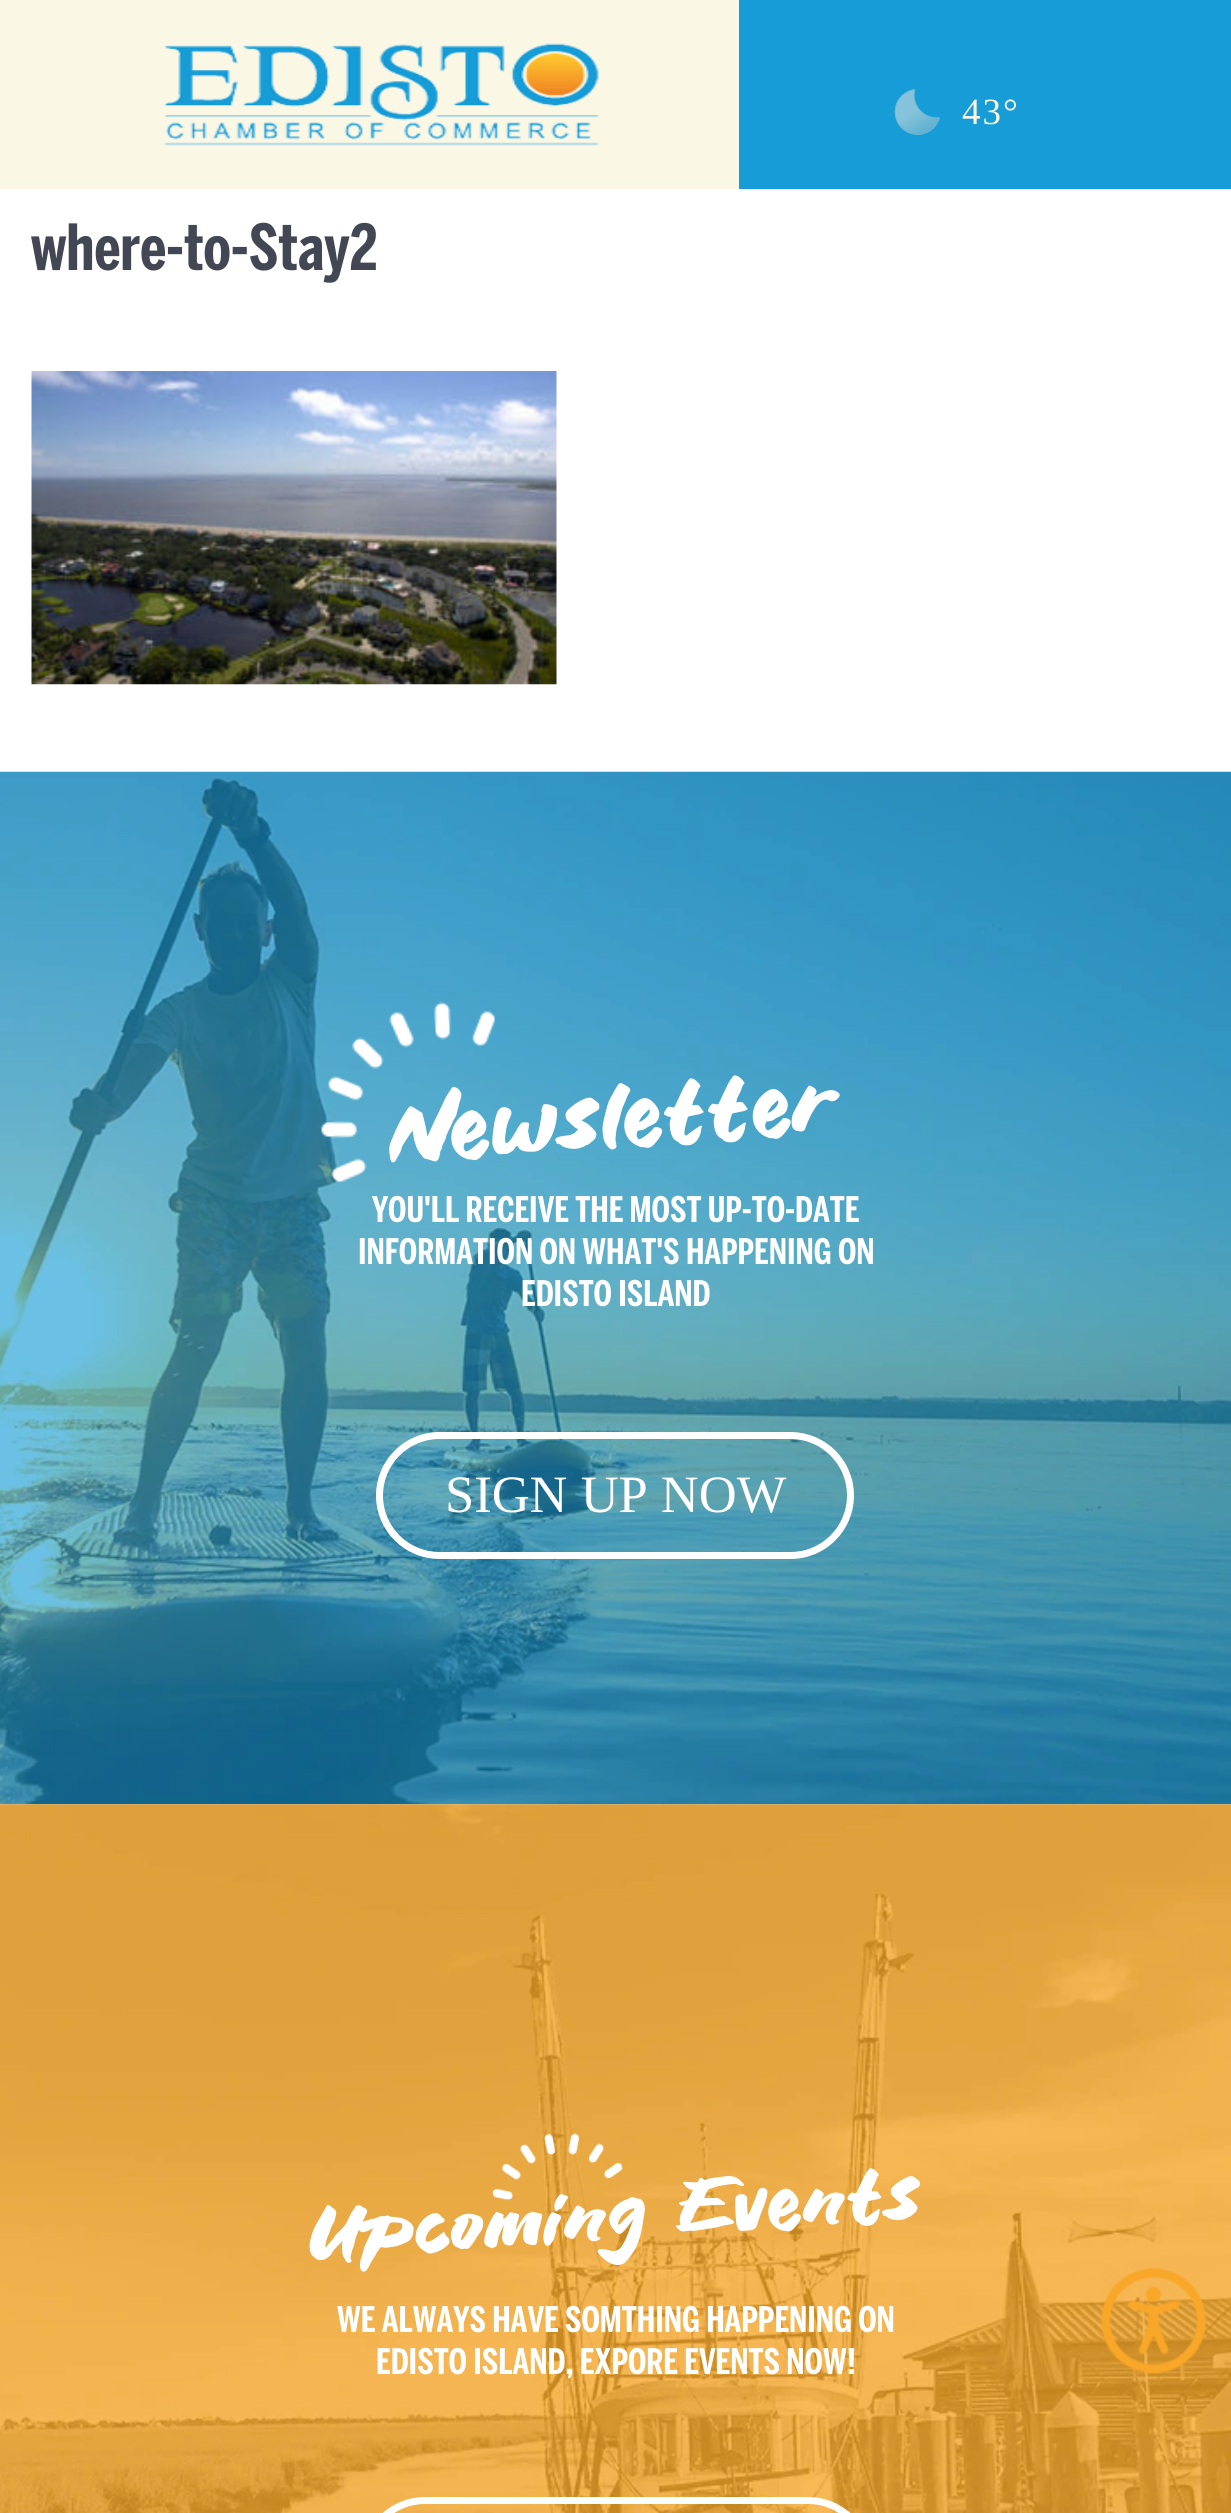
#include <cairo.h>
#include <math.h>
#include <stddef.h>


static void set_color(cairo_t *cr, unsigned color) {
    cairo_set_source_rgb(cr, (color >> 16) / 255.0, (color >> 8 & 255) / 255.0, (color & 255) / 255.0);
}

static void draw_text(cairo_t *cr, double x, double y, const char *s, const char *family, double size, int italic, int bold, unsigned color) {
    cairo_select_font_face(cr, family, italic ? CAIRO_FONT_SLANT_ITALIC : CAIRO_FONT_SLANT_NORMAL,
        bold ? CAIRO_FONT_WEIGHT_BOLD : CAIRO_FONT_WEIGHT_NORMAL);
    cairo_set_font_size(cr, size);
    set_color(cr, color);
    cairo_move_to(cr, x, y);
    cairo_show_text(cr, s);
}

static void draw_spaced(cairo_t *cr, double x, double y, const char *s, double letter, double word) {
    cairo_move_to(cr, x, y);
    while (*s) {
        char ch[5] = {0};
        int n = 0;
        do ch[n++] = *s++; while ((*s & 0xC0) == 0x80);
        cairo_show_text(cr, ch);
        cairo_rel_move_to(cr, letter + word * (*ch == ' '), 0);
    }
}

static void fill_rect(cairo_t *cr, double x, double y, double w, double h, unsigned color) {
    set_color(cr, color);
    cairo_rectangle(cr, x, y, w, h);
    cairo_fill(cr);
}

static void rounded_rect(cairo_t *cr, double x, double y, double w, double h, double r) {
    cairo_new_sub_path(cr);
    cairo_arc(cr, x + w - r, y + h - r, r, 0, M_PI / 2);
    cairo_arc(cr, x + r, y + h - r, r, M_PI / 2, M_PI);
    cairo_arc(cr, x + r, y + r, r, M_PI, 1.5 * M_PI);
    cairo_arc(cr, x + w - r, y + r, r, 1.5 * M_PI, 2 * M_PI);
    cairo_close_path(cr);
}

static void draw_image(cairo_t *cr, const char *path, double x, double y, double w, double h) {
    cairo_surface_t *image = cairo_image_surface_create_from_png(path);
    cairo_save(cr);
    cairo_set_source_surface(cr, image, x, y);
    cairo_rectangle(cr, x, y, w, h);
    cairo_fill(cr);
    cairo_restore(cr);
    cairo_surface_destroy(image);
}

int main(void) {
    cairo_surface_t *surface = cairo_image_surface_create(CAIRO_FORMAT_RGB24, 1231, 2513);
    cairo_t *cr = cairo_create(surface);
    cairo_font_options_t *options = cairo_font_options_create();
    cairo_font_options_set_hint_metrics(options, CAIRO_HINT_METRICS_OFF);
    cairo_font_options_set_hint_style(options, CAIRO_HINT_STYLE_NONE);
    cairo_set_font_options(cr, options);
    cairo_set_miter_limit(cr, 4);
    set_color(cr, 0xFFFFFF);
    cairo_paint(cr);
    fill_rect(cr, 0, 0, 739, 189, 0xFBF7E5);
    draw_image(cr, "assets/img1.png", 164, 43, 435, 103);
    fill_rect(cr, 739, 0, 492, 189, 0x169CD6);
    draw_image(cr, "assets/img2.png", 894, 89, 46, 46);
    cairo_select_font_face(cr, "Liberation Serif", CAIRO_FONT_SLANT_NORMAL, CAIRO_FONT_WEIGHT_NORMAL);
    cairo_set_font_size(cr, 37);
    set_color(cr, 0xFBF7E5);
    draw_spaced(cr, 962, 124, "43°", 2, 0);
    draw_text(cr, 31, 270, "where-to-Stay2", "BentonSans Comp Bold", 63, 0, 1, 0x424753);
    draw_image(cr, "assets/img3.png", 31, 371, 526, 314);
    draw_image(cr, "assets/img4.png", 0, 771, 1231, 1034);
    cairo_save(cr);
    cairo_translate(cr, 392, 1165);
    cairo_rotate(cr, -4 * M_PI / 180);
    draw_text(cr, 0, 0, "Newsletter", "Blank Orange", 87.5, 0, 0, 0xFFFFFF);
    cairo_restore(cr);
    draw_image(cr, "assets/img5.png", 321, 1002, 175, 181);
    draw_text(cr, 372, 1222, "YOU'LL RECEIVE THE MOST UP-TO-DATE", "BentonSans Comp Bold", 35, 0, 1, 0xFFFFFF);
    draw_text(cr, 358, 1264, "INFORMATION ON WHAT'S HAPPENING ON", "BentonSans Comp Bold", 35, 0, 1, 0xFFFFFF);
    draw_text(cr, 521, 1306, "EDISTO ISLAND", "BentonSans Comp Bold", 35, 0, 1, 0xFFFFFF);
    rounded_rect(cr, 379.5, 1435.5, 471, 120, 60);
    cairo_set_line_width(cr, 7);
    cairo_stroke(cr);
    draw_text(cr, 445, 1512, "SIGN UP NOW", "Liberation Serif", 52.5, 0, 0, 0xFFFFFF);
    draw_image(cr, "assets/img6.png", 0, 1804, 1231, 709);
    cairo_save(cr);
    cairo_translate(cr, 311, 2264);
    cairo_rotate(cr, -4 * M_PI / 180);
    draw_text(cr, 0, 0, "Upcoming Events", "Blank Orange", 75.25, 0, 0, 0xFFFFFF);
    cairo_restore(cr);
    draw_image(cr, "assets/img7.png", 492, 2133, 131, 68);
    draw_text(cr, 337, 2332, "WE ALWAYS HAVE SOMTHING HAPPENING ON", "BentonSans Comp Bold", 35, 0, 1, 0xFFFFFF);
    draw_text(cr, 376, 2374, "EDISTO ISLAND, EXPORE EVENTS NOW!", "BentonSans Comp Bold", 35, 0, 1, 0xFFFFFF);
    rounded_rect(cr, 364.5, 2500.5, 504, 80, 60.5);
    cairo_stroke(cr);
    draw_image(cr, "assets/img8.png", 1100, 2268, 106, 105);
    cairo_surface_write_to_png(surface, "output.png");
    cairo_font_options_destroy(options);
    cairo_destroy(cr);
    cairo_surface_destroy(surface);
    return 0;
}
